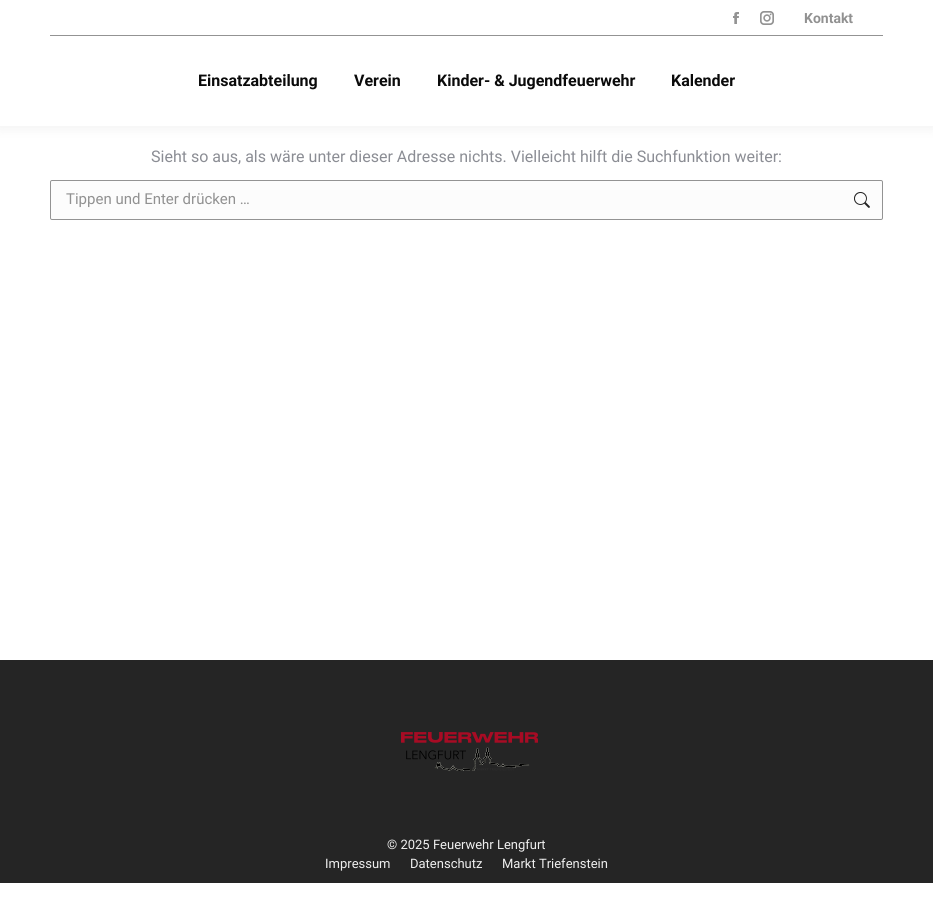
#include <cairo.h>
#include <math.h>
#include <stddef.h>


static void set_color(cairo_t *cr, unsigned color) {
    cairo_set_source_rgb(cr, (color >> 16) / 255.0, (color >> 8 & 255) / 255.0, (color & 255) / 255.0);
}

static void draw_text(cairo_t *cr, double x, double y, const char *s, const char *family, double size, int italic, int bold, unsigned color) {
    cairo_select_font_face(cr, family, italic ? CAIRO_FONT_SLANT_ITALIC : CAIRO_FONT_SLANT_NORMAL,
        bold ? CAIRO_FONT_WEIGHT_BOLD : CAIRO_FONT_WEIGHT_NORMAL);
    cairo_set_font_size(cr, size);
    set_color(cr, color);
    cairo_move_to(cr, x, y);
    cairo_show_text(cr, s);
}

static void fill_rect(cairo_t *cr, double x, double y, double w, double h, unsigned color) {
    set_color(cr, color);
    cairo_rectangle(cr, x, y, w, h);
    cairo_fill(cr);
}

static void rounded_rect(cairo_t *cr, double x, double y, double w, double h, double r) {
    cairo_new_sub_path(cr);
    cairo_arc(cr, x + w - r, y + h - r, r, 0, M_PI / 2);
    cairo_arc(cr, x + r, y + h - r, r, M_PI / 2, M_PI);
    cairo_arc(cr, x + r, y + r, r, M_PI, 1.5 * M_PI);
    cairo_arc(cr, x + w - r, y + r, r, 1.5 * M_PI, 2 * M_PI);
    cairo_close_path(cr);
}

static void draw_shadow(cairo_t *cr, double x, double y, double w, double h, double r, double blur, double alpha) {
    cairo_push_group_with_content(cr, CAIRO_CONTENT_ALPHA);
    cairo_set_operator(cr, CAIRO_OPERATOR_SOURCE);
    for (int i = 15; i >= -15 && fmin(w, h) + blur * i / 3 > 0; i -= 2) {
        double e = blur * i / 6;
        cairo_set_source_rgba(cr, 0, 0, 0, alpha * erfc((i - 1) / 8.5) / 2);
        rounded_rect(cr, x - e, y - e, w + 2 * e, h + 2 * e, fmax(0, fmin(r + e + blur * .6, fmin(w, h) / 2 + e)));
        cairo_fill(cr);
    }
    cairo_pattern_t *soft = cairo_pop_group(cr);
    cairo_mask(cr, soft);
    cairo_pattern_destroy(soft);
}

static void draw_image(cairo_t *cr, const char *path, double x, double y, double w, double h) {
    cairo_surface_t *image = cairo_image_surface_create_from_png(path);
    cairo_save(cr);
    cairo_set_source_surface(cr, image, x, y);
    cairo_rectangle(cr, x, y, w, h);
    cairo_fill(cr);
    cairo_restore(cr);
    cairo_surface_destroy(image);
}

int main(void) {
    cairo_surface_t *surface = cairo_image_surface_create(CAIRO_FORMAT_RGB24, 933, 918);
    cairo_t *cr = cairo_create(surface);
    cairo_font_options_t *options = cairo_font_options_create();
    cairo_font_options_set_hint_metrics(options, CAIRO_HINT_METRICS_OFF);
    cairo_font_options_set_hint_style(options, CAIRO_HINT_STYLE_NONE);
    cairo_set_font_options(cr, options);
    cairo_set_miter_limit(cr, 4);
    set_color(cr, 0xFFFFFF);
    cairo_paint(cr);
    set_color(cr, 0x000000);
    draw_shadow(cr, -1, -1, 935, 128, 0, 7.5, 0.07);
    fill_rect(cr, 0, 0, 933, 126, 0xFFFFFF);
    draw_image(cr, "assets/img1.png", 733, 12, 6, 12);
    draw_image(cr, "assets/img2.png", 760, 11, 14, 14);
    draw_text(cr, 804, 23, "Kontakt", "Roboto", 14, 0, 1, 0x919191);
    fill_rect(cr, 50, 35, 833, 1, 0x939393);
    draw_text(cr, 198, 86, "Einsatzabteilung", "Roboto", 16, 0, 1, 0x0A0A0A);
    draw_text(cr, 354, 86, "Verein", "Roboto", 16, 0, 1, 0x0A0A0A);
    draw_text(cr, 437, 86, "Kinder- & Jugendfeuerwehr", "Roboto", 16, 0, 1, 0x0A0A0A);
    draw_text(cr, 671, 86, "Kalender", "Roboto", 16, 0, 1, 0x0A0A0A);
    draw_text(cr, 151, 162, "Sieht so aus, als wäre unter dieser Adresse nichts. Vielleicht hilft die Suchfunktion weiter:", "Roboto", 16, 0, 0, 0x8B8D94);
    set_color(cr, 0xFCFCFC);
    rounded_rect(cr, 50.5, 180.5, 832, 39, 1.5);
    cairo_fill_preserve(cr);
    set_color(cr, 0x939393);
    cairo_set_line_width(cr, 1);
    cairo_stroke(cr);
    draw_text(cr, 66, 204, "Tippen und Enter drücken …", "Roboto", 15, 0, 0, 0x919191);
    draw_image(cr, "assets/img3.png", 854, 192, 16, 16);
    fill_rect(cr, 0, 660, 933, 223, 0x252525);
    draw_image(cr, "assets/img4.png", 401, 732, 137, 39);
    draw_text(cr, 387, 849, "© 2025 Feuerwehr Lengfurt", "Roboto", 13, 0, 0, 0xEEEEEE);
    draw_text(cr, 325, 868, "Impressum", "Roboto", 13, 0, 0, 0xEEEEEE);
    draw_text(cr, 410, 868, "Datenschutz", "Roboto", 13, 0, 0, 0xEEEEEE);
    draw_text(cr, 502, 868, "Markt Triefenstein", "Roboto", 13, 0, 0, 0xEEEEEE);
    cairo_surface_write_to_png(surface, "output.png");
    cairo_font_options_destroy(options);
    cairo_destroy(cr);
    cairo_surface_destroy(surface);
    return 0;
}
